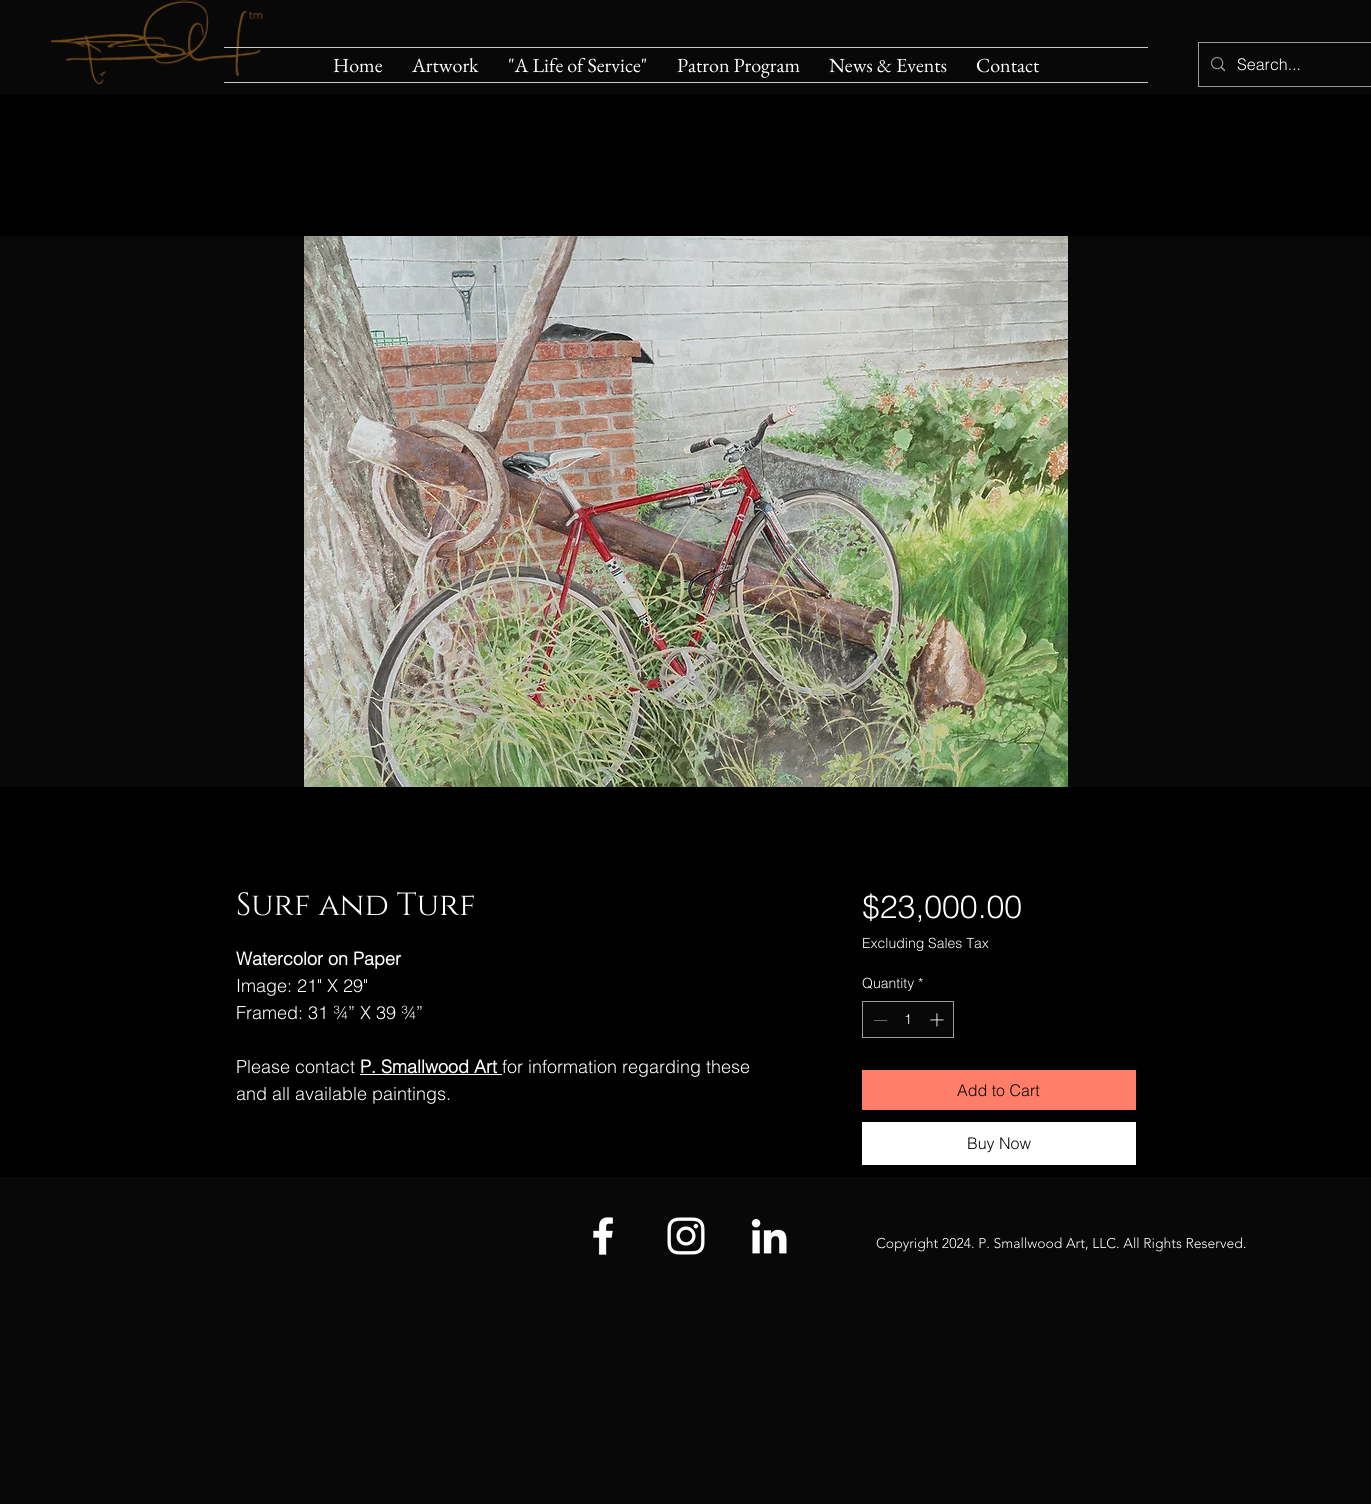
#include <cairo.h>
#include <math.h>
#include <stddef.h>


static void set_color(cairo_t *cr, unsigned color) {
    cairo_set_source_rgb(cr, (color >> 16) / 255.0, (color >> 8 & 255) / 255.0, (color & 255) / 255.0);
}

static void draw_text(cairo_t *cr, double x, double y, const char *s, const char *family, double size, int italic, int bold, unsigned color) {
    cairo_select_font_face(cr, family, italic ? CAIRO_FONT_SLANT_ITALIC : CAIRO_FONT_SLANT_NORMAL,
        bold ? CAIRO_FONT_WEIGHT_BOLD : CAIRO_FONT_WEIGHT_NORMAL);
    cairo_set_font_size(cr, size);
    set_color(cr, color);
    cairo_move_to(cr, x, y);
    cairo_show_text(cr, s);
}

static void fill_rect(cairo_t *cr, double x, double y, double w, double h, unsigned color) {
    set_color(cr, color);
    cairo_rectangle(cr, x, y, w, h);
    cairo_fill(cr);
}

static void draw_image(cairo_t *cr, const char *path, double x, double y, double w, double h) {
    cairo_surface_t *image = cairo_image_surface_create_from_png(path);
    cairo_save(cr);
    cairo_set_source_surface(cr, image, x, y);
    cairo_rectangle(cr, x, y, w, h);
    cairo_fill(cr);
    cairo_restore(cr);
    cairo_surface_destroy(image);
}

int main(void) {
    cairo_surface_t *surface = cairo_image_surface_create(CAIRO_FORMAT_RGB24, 1371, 1504);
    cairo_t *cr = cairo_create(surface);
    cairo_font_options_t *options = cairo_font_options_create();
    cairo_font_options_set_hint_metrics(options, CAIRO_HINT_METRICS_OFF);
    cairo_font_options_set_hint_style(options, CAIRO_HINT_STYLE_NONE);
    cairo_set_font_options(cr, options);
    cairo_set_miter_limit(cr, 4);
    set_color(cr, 0x080808);
    cairo_paint(cr);
    draw_image(cr, "assets/img1.png", 51, 0, 212, 85);
    fill_rect(cr, 224, 47, 924, 1, 0xCACACA);
    fill_rect(cr, 224, 82, 924, 1, 0xCACACA);
    draw_text(cr, 333, 72, "Home", "EB Garamond", 20, 0, 0, 0xFFFFFF);
    draw_text(cr, 412, 72, "Artwork", "EB Garamond", 20, 0, 0, 0xFFFFFF);
    draw_text(cr, 508, 72, "\"A Life of Service\"", "EB Garamond", 20, 0, 0, 0xFFFFFF);
    draw_text(cr, 677, 72, "Patron Program", "EB Garamond", 20, 0, 0, 0xFFFFFF);
    draw_text(cr, 829, 72, "News & Events", "EB Garamond", 20, 0, 0, 0xFFFFFF);
    draw_text(cr, 976, 72, "Contact", "EB Garamond", 20, 0, 0, 0xFFFFFF);
    cairo_rectangle(cr, 1198.5, 42.5, 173, 44);
    set_color(cr, 0x9C9C9C);
    cairo_set_line_width(cr, 1);
    cairo_stroke(cr);
    draw_image(cr, "assets/img2.png", 1211, 57, 14, 15);
    draw_text(cr, 1237, 70, "Search...", "helvetica Light", 16, 0, 0, 0xFFFFFF);
    fill_rect(cr, 0, 94, 1371, 1083, 0x000000);
    fill_rect(cr, 0, 236, 1371, 551, 0x080808);
    draw_image(cr, "assets/img3.png", 304, 236, 764, 551);
    draw_text(cr, 236, 915, "Surf and Turf", "Cinzel", 32, 0, 0, 0xFFFFFF);
    draw_text(cr, 236, 965, "Watercolor on Paper", "helvetica", 18, 0, 1, 0xFFFFFF);
    draw_text(cr, 236, 992, "Image: 21\" X 29\"", "helvetica Light", 18, 0, 0, 0xFFFFFF);
    draw_text(cr, 236, 1019, "Framed: 31 ¾” X 39 ¾”", "helvetica Light", 18, 0, 0, 0xFFFFFF);
    draw_text(cr, 236, 1073, "Please contact", "helvetica Light", 18, 0, 0, 0xFFFFFF);
    draw_text(cr, 360, 1073, "P. Smallwood Art", "helvetica", 18, 0, 1, 0xFFFFFF);
    fill_rect(cr, 360, 1074, 142, 1, 0xFFFFFF);
    draw_text(cr, 502, 1073, "for information regarding these", "helvetica Light", 18, 0, 0, 0xFFFFFF);
    draw_text(cr, 236, 1100, "and all available paintings.", "helvetica Light", 18, 0, 0, 0xFFFFFF);
    draw_text(cr, 862, 918, "$23,000.00", "helvetica Light", 32, 0, 0, 0xFFFFFF);
    draw_text(cr, 862, 948, "Excluding Sales Tax", "helvetica Light", 14, 0, 0, 0xFFFFFF);
    draw_text(cr, 862, 988, "Quantity *", "helvetica Light", 14, 0, 0, 0xFFFFFF);
    set_color(cr, 0x080808);
    cairo_rectangle(cr, 862.5, 1001.5, 91, 36);
    cairo_fill_preserve(cr);
    set_color(cr, 0x9C9C9C);
    cairo_stroke(cr);
    fill_rect(cr, 874, 1020, 13, 1, 0x686868);
    draw_text(cr, 904, 1024, "1", "helvetica Light", 14, 0, 0, 0xFFFFFF);
    draw_image(cr, "assets/img4.png", 930, 1013, 14, 14);
    fill_rect(cr, 862, 1070, 274, 40, 0xFF7D69);
    draw_text(cr, 957, 1096, "Add to Cart", "helvetica Light", 16, 0, 0, 0x080808);
    fill_rect(cr, 862, 1122, 274, 43, 0xFFFFFF);
    draw_text(cr, 967, 1149, "Buy Now", "helvetica Light", 16, 0, 0, 0x080808);
    draw_image(cr, "assets/img5.png", 593, 1217, 20, 38);
    draw_image(cr, "assets/img6.png", 667, 1217, 38, 38);
    draw_image(cr, "assets/img7.png", 751, 1218, 36, 36);
    draw_text(cr, 876, 1248, "Copyright 2024. P. Smallwood Art, LLC. All Rights Reserved.", "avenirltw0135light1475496 Light", 14, 0, 0, 0xFFFFFF);
    cairo_surface_write_to_png(surface, "output.png");
    cairo_font_options_destroy(options);
    cairo_destroy(cr);
    cairo_surface_destroy(surface);
    return 0;
}
